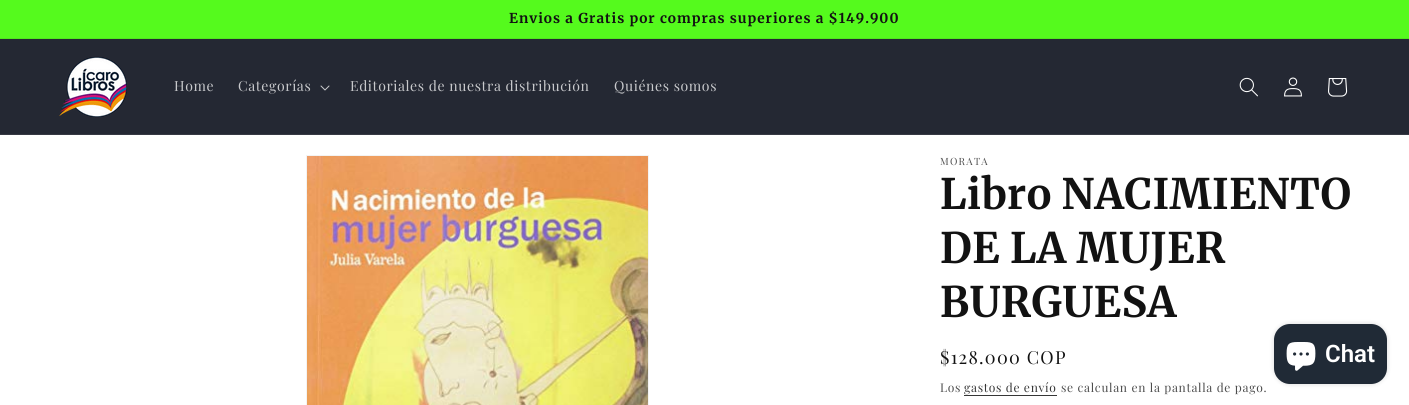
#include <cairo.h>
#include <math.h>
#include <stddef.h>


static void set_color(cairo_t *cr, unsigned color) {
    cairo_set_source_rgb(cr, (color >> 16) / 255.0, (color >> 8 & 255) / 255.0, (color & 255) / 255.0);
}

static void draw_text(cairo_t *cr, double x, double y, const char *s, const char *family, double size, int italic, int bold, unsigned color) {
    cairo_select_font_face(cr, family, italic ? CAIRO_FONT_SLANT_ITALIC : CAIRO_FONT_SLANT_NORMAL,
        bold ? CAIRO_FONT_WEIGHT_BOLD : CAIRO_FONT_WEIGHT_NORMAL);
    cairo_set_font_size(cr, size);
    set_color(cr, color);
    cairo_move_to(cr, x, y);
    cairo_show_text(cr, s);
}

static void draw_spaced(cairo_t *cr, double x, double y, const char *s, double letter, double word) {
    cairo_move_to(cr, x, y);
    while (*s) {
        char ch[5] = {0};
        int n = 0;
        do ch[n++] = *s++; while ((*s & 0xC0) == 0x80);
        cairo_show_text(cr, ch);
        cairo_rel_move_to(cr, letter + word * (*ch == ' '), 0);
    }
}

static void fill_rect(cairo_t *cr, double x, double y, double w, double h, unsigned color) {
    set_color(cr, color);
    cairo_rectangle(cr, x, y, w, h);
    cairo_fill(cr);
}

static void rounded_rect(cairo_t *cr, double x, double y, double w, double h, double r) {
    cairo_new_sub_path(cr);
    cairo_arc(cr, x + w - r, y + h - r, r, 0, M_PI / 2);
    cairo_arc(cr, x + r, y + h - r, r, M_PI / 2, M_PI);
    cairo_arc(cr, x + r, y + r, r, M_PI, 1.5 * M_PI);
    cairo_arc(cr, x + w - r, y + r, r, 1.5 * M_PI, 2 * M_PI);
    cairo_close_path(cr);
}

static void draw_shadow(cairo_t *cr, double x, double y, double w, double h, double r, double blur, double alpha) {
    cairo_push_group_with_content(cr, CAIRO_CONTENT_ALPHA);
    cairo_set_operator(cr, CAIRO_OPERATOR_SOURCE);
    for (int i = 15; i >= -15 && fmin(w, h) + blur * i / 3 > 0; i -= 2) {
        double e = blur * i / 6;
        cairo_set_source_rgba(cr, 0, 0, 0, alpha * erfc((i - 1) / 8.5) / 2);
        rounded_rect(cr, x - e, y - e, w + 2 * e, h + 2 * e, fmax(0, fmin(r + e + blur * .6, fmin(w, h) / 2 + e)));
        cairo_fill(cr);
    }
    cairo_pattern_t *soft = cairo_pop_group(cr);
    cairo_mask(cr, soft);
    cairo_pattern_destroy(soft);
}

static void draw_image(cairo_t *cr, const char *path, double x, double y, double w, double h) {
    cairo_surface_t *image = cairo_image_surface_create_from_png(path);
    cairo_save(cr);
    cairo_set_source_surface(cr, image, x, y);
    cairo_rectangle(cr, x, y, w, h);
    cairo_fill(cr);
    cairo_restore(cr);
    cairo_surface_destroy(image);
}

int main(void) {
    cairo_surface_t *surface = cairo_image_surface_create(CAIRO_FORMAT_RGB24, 1409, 405);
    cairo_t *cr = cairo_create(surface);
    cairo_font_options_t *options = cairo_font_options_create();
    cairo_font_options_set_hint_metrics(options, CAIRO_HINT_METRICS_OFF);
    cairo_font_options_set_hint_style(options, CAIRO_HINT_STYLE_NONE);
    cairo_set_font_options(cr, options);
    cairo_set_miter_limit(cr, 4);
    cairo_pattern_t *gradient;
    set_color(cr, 0xFFFFFF);
    cairo_paint(cr);
    gradient = cairo_pattern_create_linear(147, 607, 1262, -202);
    cairo_pattern_add_color_stop_rgba(gradient, 1, 0.333, 0.98, 0.114, 1);
    cairo_pattern_add_color_stop_rgba(gradient, 1, 0, 0, 0, 1);
    cairo_set_source(cr, gradient);
    cairo_pattern_destroy(gradient);
    cairo_rectangle(cr, 0, 0, 1409, 38);
    cairo_fill(cr);
    fill_rect(cr, 0, 38, 1409, 1, 0x50E71C);
    cairo_select_font_face(cr, "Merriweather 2", CAIRO_FONT_SLANT_NORMAL, CAIRO_FONT_WEIGHT_BOLD);
    cairo_set_font_size(cr, 13.65);
    set_color(cr, 0x121212);
    draw_spaced(cr, 509, 23, "Envios a Gratis por compras superiores a $149.900", 1, 0);
    fill_rect(cr, 0, 39, 1409, 95, 0x242833);
    fill_rect(cr, 0, 134, 1409, 1, 0x363943);
    draw_image(cr, "assets/img1.png", 59, 56, 68, 62);
    cairo_select_font_face(cr, "Playfair Display", CAIRO_FONT_SLANT_NORMAL, CAIRO_FONT_WEIGHT_NORMAL);
    cairo_set_font_size(cr, 14);
    set_color(cr, 0xC8C9CC);
    draw_spaced(cr, 174, 91, "Home", 0.6, 0);
    draw_spaced(cr, 238, 91, "Categorías", 0.6, 0);
    draw_image(cr, "assets/img2.png", 320, 85, 10, 6);
    draw_spaced(cr, 350, 91, "Editoriales de nuestra distribución", 0.6, 0);
    draw_spaced(cr, 614, 91, "Quiénes somos", 0.6, 0);
    draw_image(cr, "assets/img3.png", 1239, 77, 19, 20);
    draw_image(cr, "assets/img4.png", 1284, 77, 18, 20);
    draw_image(cr, "assets/img5.png", 1328, 78, 20, 19);
    cairo_rectangle(cr, 306.5, 155.5, 342, 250);
    set_color(cr, 0xF3F3F3);
    cairo_set_line_width(cr, 1);
    cairo_stroke(cr);
    draw_image(cr, "assets/img6.png", 307, 156, 341, 249);
    cairo_set_font_size(cr, 10);
    set_color(cr, 0x4D4D4D);
    draw_spaced(cr, 940, 165, "MORATA", 1.25, 0);
    cairo_select_font_face(cr, "Merriweather", CAIRO_FONT_SLANT_NORMAL, CAIRO_FONT_WEIGHT_BOLD);
    cairo_set_font_size(cr, 42);
    set_color(cr, 0x121212);
    draw_spaced(cr, 940, 209, "Libro NACIMIENTO", 0.6, 0);
    draw_spaced(cr, 940, 263, "DE LA MUJER", 0.6, 0);
    draw_spaced(cr, 940, 317, "BURGUESA", 0.6, 0);
    cairo_select_font_face(cr, "Playfair Display", CAIRO_FONT_SLANT_NORMAL, CAIRO_FONT_WEIGHT_NORMAL);
    cairo_set_font_size(cr, 18);
    draw_spaced(cr, 940, 364, "$128.000 COP", 1.25, 0);
    cairo_set_font_size(cr, 12);
    set_color(cr, 0x4D4D4D);
    draw_spaced(cr, 940, 392, "Los", 0.7, 0);
    set_color(cr, 0x363636);
    draw_spaced(cr, 964, 392, "gastos de envío", 0.7, 0);
    fill_rect(cr, 964, 395, 93, 1, 0x363636);
    set_color(cr, 0x4D4D4D);
    draw_spaced(cr, 1061, 392, "se calculan en la pantalla de pago.", 0.7, 0);
    set_color(cr, 0x000000);
    draw_shadow(cr, 1274, 324, 113, 60, 16, 2.5, 0.15);
    set_color(cr, 0x202A36);
    rounded_rect(cr, 1274, 324, 113, 60, 16);
    cairo_fill(cr);
    draw_image(cr, "assets/img7.png", 1286, 342, 30, 29);
    draw_text(cr, 1325, 362, "Chat", "Roboto SemiBold", 24, 0, 0, 0xFFFFFF);
    cairo_surface_write_to_png(surface, "output.png");
    cairo_font_options_destroy(options);
    cairo_destroy(cr);
    cairo_surface_destroy(surface);
    return 0;
}
